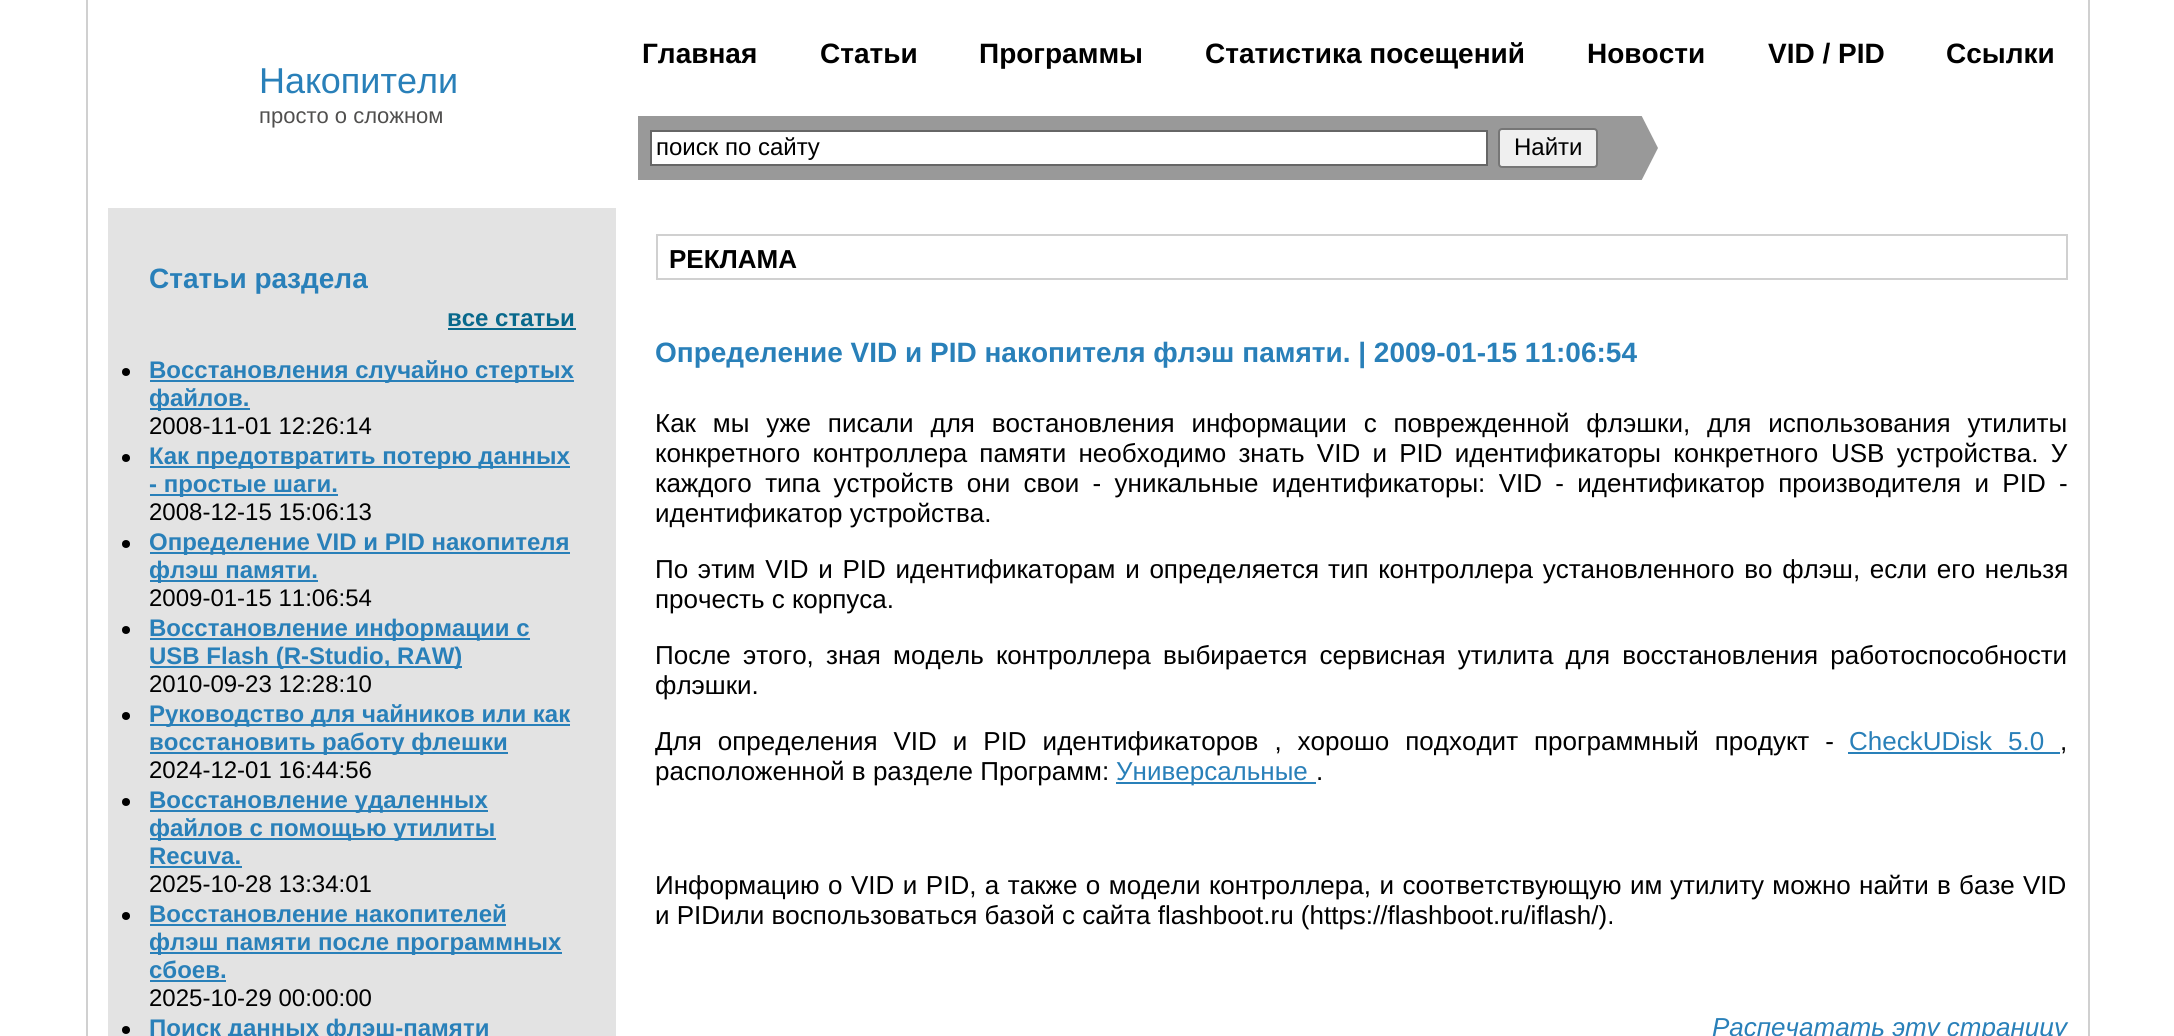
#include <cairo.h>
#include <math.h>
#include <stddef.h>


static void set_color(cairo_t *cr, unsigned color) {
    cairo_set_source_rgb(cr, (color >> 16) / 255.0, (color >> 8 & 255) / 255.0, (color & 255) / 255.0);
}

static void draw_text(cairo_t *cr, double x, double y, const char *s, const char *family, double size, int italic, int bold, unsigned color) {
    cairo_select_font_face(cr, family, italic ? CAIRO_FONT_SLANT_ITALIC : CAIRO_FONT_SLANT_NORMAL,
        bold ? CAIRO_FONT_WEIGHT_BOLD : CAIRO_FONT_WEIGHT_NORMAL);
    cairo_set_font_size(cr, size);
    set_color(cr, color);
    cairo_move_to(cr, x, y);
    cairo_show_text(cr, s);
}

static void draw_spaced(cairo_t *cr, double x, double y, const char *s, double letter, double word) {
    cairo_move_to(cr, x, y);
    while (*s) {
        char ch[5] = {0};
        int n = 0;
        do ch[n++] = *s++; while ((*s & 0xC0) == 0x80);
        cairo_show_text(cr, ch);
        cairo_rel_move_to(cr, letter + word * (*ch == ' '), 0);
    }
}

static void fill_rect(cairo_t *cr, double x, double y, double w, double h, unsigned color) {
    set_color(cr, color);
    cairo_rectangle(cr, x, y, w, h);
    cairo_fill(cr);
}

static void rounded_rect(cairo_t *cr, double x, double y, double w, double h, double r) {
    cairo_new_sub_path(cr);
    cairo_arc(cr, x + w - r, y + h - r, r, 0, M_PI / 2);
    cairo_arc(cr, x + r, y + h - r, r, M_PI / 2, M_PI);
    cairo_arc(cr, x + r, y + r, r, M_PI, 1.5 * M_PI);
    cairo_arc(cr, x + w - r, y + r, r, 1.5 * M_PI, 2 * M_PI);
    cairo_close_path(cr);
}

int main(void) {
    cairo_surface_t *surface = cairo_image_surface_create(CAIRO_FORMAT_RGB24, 2174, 1036);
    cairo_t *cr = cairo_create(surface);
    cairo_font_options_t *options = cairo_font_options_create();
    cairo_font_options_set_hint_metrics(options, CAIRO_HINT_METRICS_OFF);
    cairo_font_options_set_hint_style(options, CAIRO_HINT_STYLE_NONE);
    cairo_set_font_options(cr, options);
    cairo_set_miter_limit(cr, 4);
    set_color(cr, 0xFFFFFF);
    cairo_paint(cr);
    fill_rect(cr, 2088, 0, 2, 1036, 0xD0D0D0);
    fill_rect(cr, 86, 0, 2, 1036, 0xD0D0D0);
    draw_text(cr, 259, 93, "Накопители", "Liberation Sans", 36, 0, 0, 0x2980B9);
    draw_text(cr, 259, 123, "просто о сложном", "Liberation Sans", 22, 0, 0, 0x504F4E);
    draw_text(cr, 642, 63, "Главная", "Liberation Sans", 28, 0, 1, 0x000000);
    draw_text(cr, 820, 63, "Статьи", "Liberation Sans", 28, 0, 1, 0x000000);
    draw_text(cr, 979, 63, "Программы", "Liberation Sans", 28, 0, 1, 0x000000);
    draw_text(cr, 1205, 63, "Статистика посещений", "Liberation Sans", 28, 0, 1, 0x000000);
    draw_text(cr, 1587, 63, "Новости", "Liberation Sans", 28, 0, 1, 0x000000);
    draw_text(cr, 1768, 63, "VID / PID", "Liberation Sans", 28, 0, 1, 0x000000);
    draw_text(cr, 1946, 63, "Ссылки", "Liberation Sans", 28, 0, 1, 0x000000);
    fill_rect(cr, 638, 116, 960, 64, 0x999999);
    set_color(cr, 0xFFFFFF);
    cairo_rectangle(cr, 651, 131, 836, 34);
    cairo_fill_preserve(cr);
    set_color(cr, 0x666666);
    cairo_stroke(cr);
    draw_text(cr, 656, 155, "поиск по сайту", "Liberation Sans", 24, 0, 0, 0x000000);
    set_color(cr, 0xEFEFEF);
    rounded_rect(cr, 1499, 129, 98, 38, 3);
    cairo_fill_preserve(cr);
    set_color(cr, 0x767676);
    cairo_stroke(cr);
    draw_text(cr, 1514, 155, "Найти", "Liberation Sans", 24, 0, 0, 0x000000);
    cairo_save(cr);
    cairo_rectangle(cr, 1598, 116, 60, 64);
    cairo_clip(cr);
    set_color(cr, 0x999999);
    cairo_new_path(cr);
    cairo_move_to(cr, 1598, 266);
    cairo_line_to(cr, 1598, 30);
    cairo_line_to(cr, 1658, 148);
    cairo_close_path(cr);
    cairo_fill(cr);
    cairo_restore(cr);
    fill_rect(cr, 108, 208, 508, 828, 0xE3E3E3);
    draw_text(cr, 149, 288, "Статьи раздела", "Liberation Sans", 28, 0, 1, 0x2980B9);
    draw_text(cr, 447, 326, "все статьи", "Liberation Sans", 24, 0, 1, 0x09698C);
    fill_rect(cr, 448, 328, 128, 2, 0x09698C);
    set_color(cr, 0x000000);
    cairo_new_path(cr);
    cairo_arc(cr, 126, 372, 4, 0, 2 * M_PI);
    cairo_fill(cr);
    fill_rect(cr, 150, 380, 424, 2, 0x2980B9);
    draw_text(cr, 149, 378, "Восстановления случайно стертых", "Liberation Sans", 24, 0, 1, 0x2980B9);
    fill_rect(cr, 150, 408, 100, 2, 0x2980B9);
    draw_text(cr, 149, 406, "файлов.", "Liberation Sans", 24, 0, 1, 0x2980B9);
    draw_text(cr, 149, 434, "2008-11-01 12:26:14", "Liberation Sans", 24, 0, 0, 0x000000);
    cairo_new_path(cr);
    cairo_arc(cr, 126, 458, 4, 0, 2 * M_PI);
    cairo_fill(cr);
    fill_rect(cr, 150, 466, 420, 2, 0x2980B9);
    draw_text(cr, 149, 464, "Как предотвратить потерю данных", "Liberation Sans", 24, 0, 1, 0x2980B9);
    fill_rect(cr, 150, 494, 188, 2, 0x2980B9);
    draw_text(cr, 149, 492, "- простые шаги.", "Liberation Sans", 24, 0, 1, 0x2980B9);
    draw_text(cr, 149, 520, "2008-12-15 15:06:13", "Liberation Sans", 24, 0, 0, 0x000000);
    cairo_new_path(cr);
    cairo_arc(cr, 126, 544, 4, 0, 2 * M_PI);
    cairo_fill(cr);
    fill_rect(cr, 150, 552, 420, 2, 0x2980B9);
    draw_text(cr, 149, 550, "Определение VID и PID накопителя", "Liberation Sans", 24, 0, 1, 0x2980B9);
    fill_rect(cr, 150, 580, 168, 2, 0x2980B9);
    draw_text(cr, 149, 578, "флэш памяти.", "Liberation Sans", 24, 0, 1, 0x2980B9);
    draw_text(cr, 149, 606, "2009-01-15 11:06:54", "Liberation Sans", 24, 0, 0, 0x000000);
    cairo_new_path(cr);
    cairo_arc(cr, 126, 630, 4, 0, 2 * M_PI);
    cairo_fill(cr);
    fill_rect(cr, 150, 638, 380, 2, 0x2980B9);
    draw_text(cr, 149, 636, "Восстановление информации с", "Liberation Sans", 24, 0, 1, 0x2980B9);
    fill_rect(cr, 150, 666, 312, 2, 0x2980B9);
    draw_text(cr, 149, 664, "USB Flash (R-Studio, RAW)", "Liberation Sans", 24, 0, 1, 0x2980B9);
    draw_text(cr, 149, 692, "2010-09-23 12:28:10", "Liberation Sans", 24, 0, 0, 0x000000);
    cairo_new_path(cr);
    cairo_arc(cr, 126, 716, 4, 0, 2 * M_PI);
    cairo_fill(cr);
    fill_rect(cr, 150, 724, 420, 2, 0x2980B9);
    draw_text(cr, 149, 722, "Руководство для чайников или как", "Liberation Sans", 24, 0, 1, 0x2980B9);
    fill_rect(cr, 150, 752, 358, 2, 0x2980B9);
    draw_text(cr, 149, 750, "восстановить работу флешки", "Liberation Sans", 24, 0, 1, 0x2980B9);
    draw_text(cr, 149, 778, "2024-12-01 16:44:56", "Liberation Sans", 24, 0, 0, 0x000000);
    cairo_new_path(cr);
    cairo_arc(cr, 126, 802, 4, 0, 2 * M_PI);
    cairo_fill(cr);
    fill_rect(cr, 150, 810, 338, 2, 0x2980B9);
    draw_text(cr, 149, 808, "Восстановление удаленных", "Liberation Sans", 24, 0, 1, 0x2980B9);
    fill_rect(cr, 150, 838, 346, 2, 0x2980B9);
    draw_text(cr, 149, 836, "файлов с помощью утилиты", "Liberation Sans", 24, 0, 1, 0x2980B9);
    draw_text(cr, 149, 864, "Recuva.", "Liberation Sans", 24, 0, 1, 0x2980B9);
    fill_rect(cr, 150, 866, 92, 2, 0x2980B9);
    draw_text(cr, 149, 892, "2025-10-28 13:34:01", "Liberation Sans", 24, 0, 0, 0x000000);
    cairo_new_path(cr);
    cairo_arc(cr, 126, 916, 4, 0, 2 * M_PI);
    cairo_fill(cr);
    draw_text(cr, 149, 922, "Восстановление накопителей", "Liberation Sans", 24, 0, 1, 0x2980B9);
    fill_rect(cr, 150, 924, 356, 2, 0x2980B9);
    fill_rect(cr, 150, 952, 412, 2, 0x2980B9);
    draw_text(cr, 149, 950, "флэш памяти после программных", "Liberation Sans", 24, 0, 1, 0x2980B9);
    draw_text(cr, 149, 978, "сбоев.", "Liberation Sans", 24, 0, 1, 0x2980B9);
    fill_rect(cr, 150, 980, 76, 2, 0x2980B9);
    draw_text(cr, 149, 1006, "2025-10-29 00:00:00", "Liberation Sans", 24, 0, 0, 0x000000);
    cairo_new_path(cr);
    cairo_arc(cr, 126, 1030, 4, 0, 2 * M_PI);
    cairo_fill(cr);
    draw_text(cr, 149, 1036, "Поиск данных флэш-памяти", "Liberation Sans", 24, 0, 1, 0x2980B9);
    cairo_rectangle(cr, 657, 235, 1410, 44);
    set_color(cr, 0xD0D0D0);
    cairo_stroke(cr);
    draw_text(cr, 669, 268, "РЕКЛАМА", "Liberation Sans", 26, 0, 1, 0x000000);
    draw_text(cr, 655, 362, "Определение VID и PID накопителя флэш памяти. | 2009-01-15 11:06:54", "Liberation Sans", 28, 0, 1, 0x2980B9);
    cairo_select_font_face(cr, "Liberation Sans", CAIRO_FONT_SLANT_NORMAL, CAIRO_FONT_WEIGHT_NORMAL);
    cairo_set_font_size(cr, 26);
    set_color(cr, 0x000000);
    draw_spaced(cr, 655, 432, "Как мы уже писали для востановления информации с поврежденной флэшки, для использования утилиты", 0, 9.6);
    draw_spaced(cr, 655, 462, "конкретного контроллера памяти необходимо знать VID и PID идентификаторы конкретного", 0, 5);
    draw_spaced(cr, 1831, 462, "USB устройства. У", 0, 5);
    draw_spaced(cr, 655, 492, "каждого типа устройств они свои - уникальные идентификаторы: VID - идентификатор производителя и PID -", 0, 6.1);
    draw_text(cr, 655, 522, "идентификатор устройства.", "Liberation Sans", 26, 0, 0, 0x000000);
    draw_spaced(cr, 655, 578, "По этим VID и PID идентификаторам и определяется", 0, 2.5);
    draw_spaced(cr, 1328, 578, "тип контроллера установленного во флэш, если его нельзя", 0, 2.5);
    draw_text(cr, 655, 608, "прочесть с корпуса.", "Liberation Sans", 26, 0, 0, 0x000000);
    draw_spaced(cr, 655, 664, "После этого, зная модель контроллера выбирается сервисная утилита для восстановления работоспособности", 0, 5);
    draw_text(cr, 655, 694, "флэшки.", "Liberation Sans", 26, 0, 0, 0x000000);
    draw_spaced(cr, 655, 750, "Для определения VID и PID идентификаторов , хорошо подходит программный продукт -", 0, 8.75);
    set_color(cr, 0x2980B9);
    draw_spaced(cr, 1849, 750, "CheckUDisk 5.0", 0, 8.75);
    fill_rect(cr, 1848, 752, 212, 2, 0x2980B9);
    draw_text(cr, 2060, 750, ",", "Liberation Sans", 26, 0, 0, 0x000000);
    draw_text(cr, 655, 780, "расположенной в разделе Программ:", "Liberation Sans", 26, 0, 0, 0x000000);
    fill_rect(cr, 1116, 782, 200, 2, 0x2980B9);
    draw_text(cr, 1116, 780, "Универсальные", "Liberation Sans", 26, 0, 0, 0x2980B9);
    draw_text(cr, 1316, 780, ".", "Liberation Sans", 26, 0, 0, 0x000000);
    draw_spaced(cr, 655, 894, "Информацию о VID и PID, а также о модели контроллера, и соответствующую им", 0, 1.25);
    draw_spaced(cr, 1670, 894, "утилиту можно найти в базе VID", 0, 1);
    draw_text(cr, 655, 924, "и PIDили воспользоваться базой с сайта flashboot.ru (https://flashboot.ru/iflash/).", "Liberation Sans", 26, 0, 0, 0x000000);
    draw_text(cr, 1712, 1036, "Распечатать эту страницу", "Liberation Sans", 26, 1, 0, 0x2980B9);
    cairo_surface_write_to_png(surface, "output.png");
    cairo_font_options_destroy(options);
    cairo_destroy(cr);
    cairo_surface_destroy(surface);
    return 0;
}
